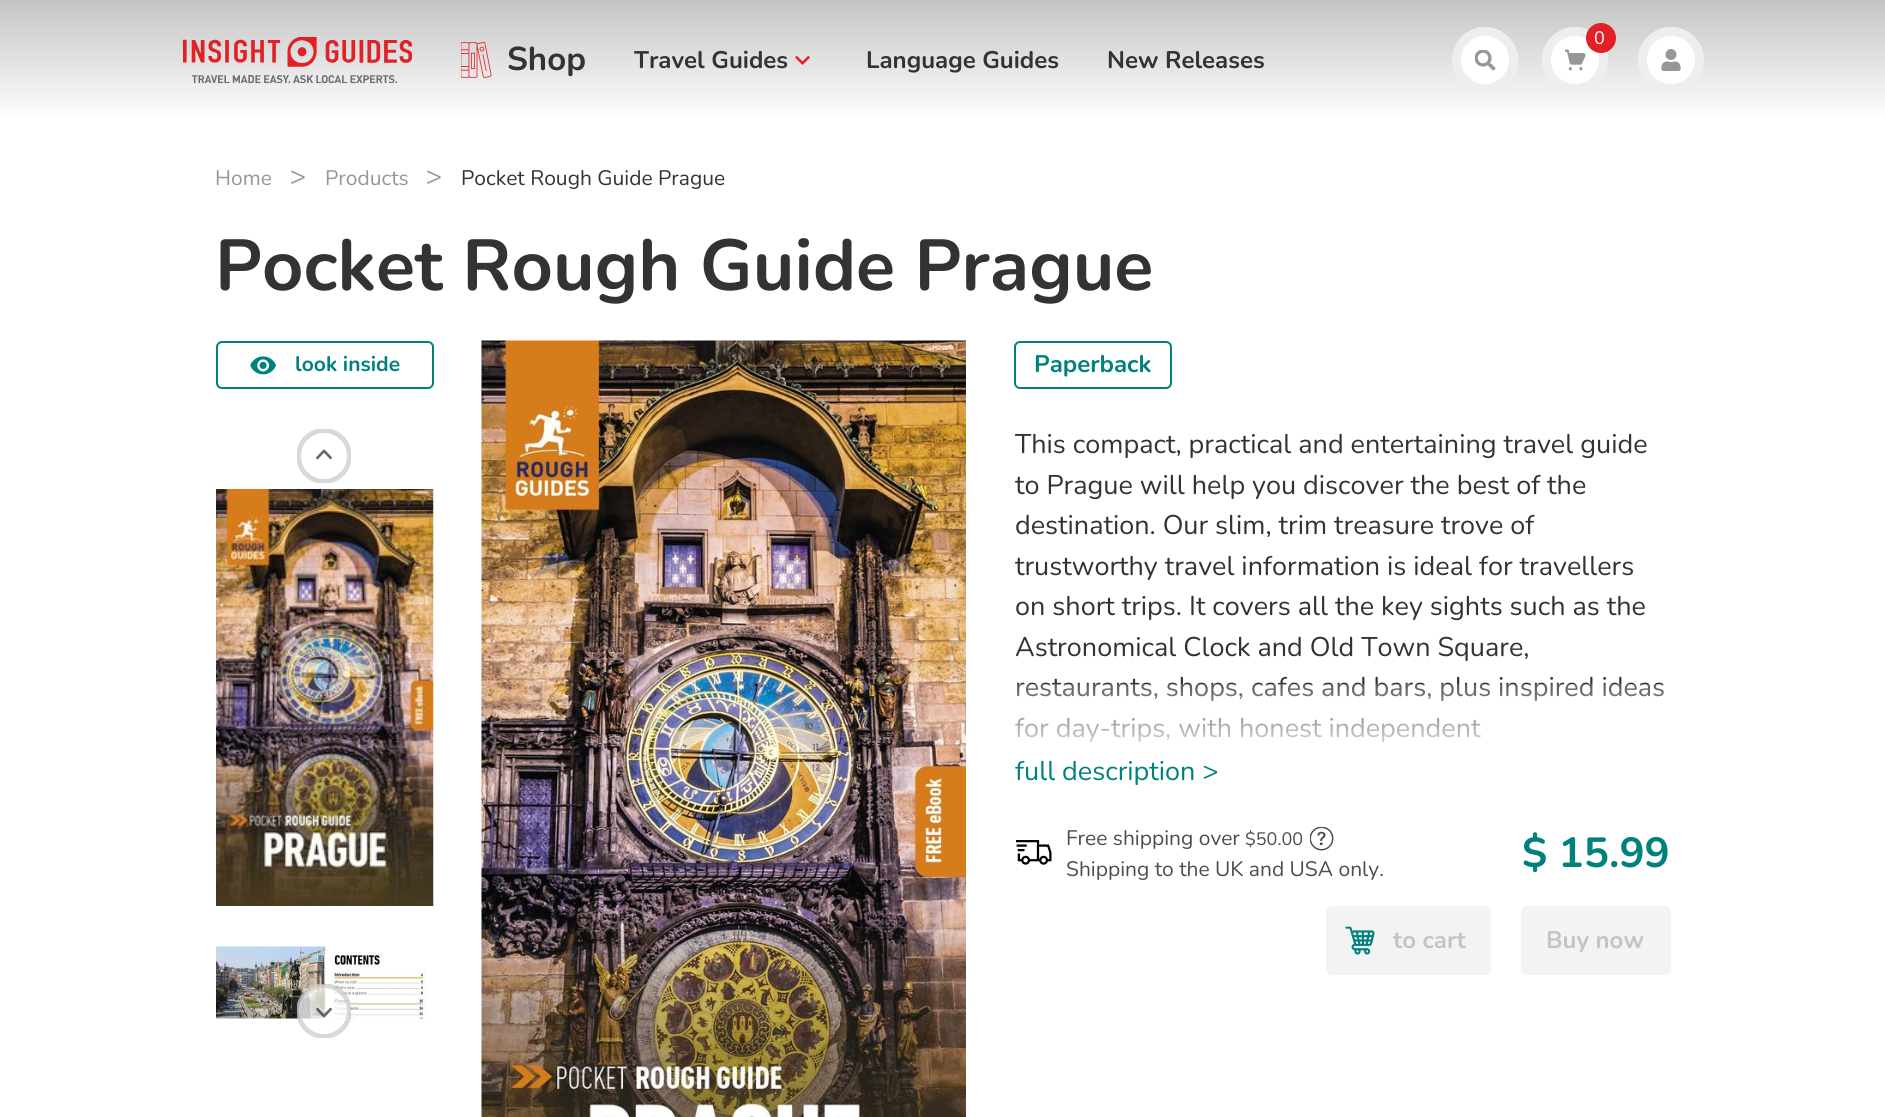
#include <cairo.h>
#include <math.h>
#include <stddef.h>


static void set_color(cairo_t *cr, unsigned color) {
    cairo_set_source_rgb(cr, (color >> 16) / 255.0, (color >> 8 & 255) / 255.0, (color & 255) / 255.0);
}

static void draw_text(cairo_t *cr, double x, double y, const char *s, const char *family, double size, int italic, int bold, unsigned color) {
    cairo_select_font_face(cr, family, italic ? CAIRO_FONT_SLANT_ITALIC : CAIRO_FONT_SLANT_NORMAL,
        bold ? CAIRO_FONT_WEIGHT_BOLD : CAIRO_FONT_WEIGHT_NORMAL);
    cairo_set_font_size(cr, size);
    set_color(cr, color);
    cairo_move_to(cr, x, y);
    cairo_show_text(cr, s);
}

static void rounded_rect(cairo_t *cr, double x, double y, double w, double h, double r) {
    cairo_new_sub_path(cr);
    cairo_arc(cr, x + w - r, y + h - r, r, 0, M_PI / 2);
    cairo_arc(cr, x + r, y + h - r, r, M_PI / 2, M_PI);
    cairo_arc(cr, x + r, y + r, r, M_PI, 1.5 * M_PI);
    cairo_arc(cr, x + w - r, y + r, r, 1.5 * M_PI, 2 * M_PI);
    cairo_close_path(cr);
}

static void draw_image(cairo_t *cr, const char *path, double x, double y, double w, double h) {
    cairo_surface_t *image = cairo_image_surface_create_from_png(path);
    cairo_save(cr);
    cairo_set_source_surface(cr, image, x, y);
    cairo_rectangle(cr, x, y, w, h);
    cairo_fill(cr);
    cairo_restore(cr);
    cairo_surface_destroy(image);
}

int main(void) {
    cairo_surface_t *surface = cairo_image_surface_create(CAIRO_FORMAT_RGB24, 1885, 1117);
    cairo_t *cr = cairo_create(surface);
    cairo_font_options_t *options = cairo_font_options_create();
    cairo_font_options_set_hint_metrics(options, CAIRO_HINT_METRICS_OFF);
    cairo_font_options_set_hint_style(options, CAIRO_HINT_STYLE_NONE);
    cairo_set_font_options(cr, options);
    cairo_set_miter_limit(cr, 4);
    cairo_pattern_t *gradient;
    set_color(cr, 0xFFFFFF);
    cairo_paint(cr);
    gradient = cairo_pattern_create_linear(943, 0, 943, 120);
    cairo_pattern_add_color_stop_rgba(gradient, 0, 0.769, 0.769, 0.769, 1);
    cairo_pattern_add_color_stop_rgba(gradient, 1, 1, 1, 1, 1);
    cairo_set_source(cr, gradient);
    cairo_pattern_destroy(gradient);
    cairo_rectangle(cr, 0, 0, 1885, 115);
    cairo_fill(cr);
    draw_image(cr, "assets/img1.png", 183, 36, 229, 48);
    set_color(cr, 0xFFFFFF);
    cairo_arc(cr, 1485, 60, 33, 0, 2 * M_PI);
    cairo_fill(cr);
    cairo_arc(cr, 1485, 60, 28.5, 0, 2 * M_PI);
    cairo_set_source_rgba(cr, 0.769, 0.769, 0.769, 0.3);
    cairo_set_line_width(cr, 9);
    cairo_stroke(cr);
    draw_image(cr, "assets/img2.png", 1475, 50, 21, 21);
    set_color(cr, 0xFFFFFF);
    cairo_arc(cr, 1575, 60, 33, 0, 2 * M_PI);
    cairo_fill(cr);
    cairo_arc(cr, 1575, 60, 28.5, 0, 2 * M_PI);
    cairo_set_source_rgba(cr, 0.769, 0.769, 0.769, 0.3);
    cairo_stroke(cr);
    draw_image(cr, "assets/img3.png", 1565, 49, 21, 22);
    set_color(cr, 0xE22025);
    cairo_arc(cr, 1601, 38, 15, 0, 2 * M_PI);
    cairo_fill(cr);
    draw_text(cr, 1594, 44, "0", "Nunito", 18, 0, 0, 0xFFFFFF);
    cairo_new_path(cr);
    cairo_arc(cr, 1671, 60, 33, 0, 2 * M_PI);
    cairo_fill(cr);
    cairo_arc(cr, 1671, 60, 28.5, 0, 2 * M_PI);
    cairo_set_source_rgba(cr, 0.769, 0.769, 0.769, 0.3);
    cairo_stroke(cr);
    draw_image(cr, "assets/img4.png", 1661, 49, 20, 22);
    draw_image(cr, "assets/img5.png", 461, 42, 31, 36);
    draw_text(cr, 507, 70, "Shop", "Nunito", 33, 0, 1, 0x333333);
    draw_text(cr, 634, 68, "Travel Guides", "Nunito", 24, 0, 1, 0x333333);
    draw_image(cr, "assets/img6.png", 795, 55, 15, 10);
    draw_text(cr, 866, 68, "Language Guides", "Nunito", 24, 0, 1, 0x333333);
    draw_text(cr, 1107, 68, "New Releases", "Nunito", 24, 0, 1, 0x333333);
    draw_text(cr, 215, 185, "Home", "Nunito", 21, 0, 0, 0x979797);
    draw_text(cr, 290, 185, ">", "Nunito", 27, 0, 0, 0x979797);
    draw_text(cr, 325, 185, "Products", "Nunito", 21, 0, 0, 0x979797);
    draw_text(cr, 426, 185, ">", "Nunito", 27, 0, 0, 0x979797);
    draw_text(cr, 461, 185, "Pocket Rough Guide Prague", "Nunito", 21, 0, 0, 0x333333);
    draw_text(cr, 215, 290, "Pocket Rough Guide Prague", "Nunito", 72, 0, 1, 0x333333);
    rounded_rect(cr, 217, 342, 216, 46, 5);
    set_color(cr, 0x00817E);
    cairo_set_line_width(cr, 2);
    cairo_stroke(cr);
    draw_image(cr, "assets/img7.png", 250, 356, 26, 19);
    draw_text(cr, 295, 371, "look inside", "Nunito", 21, 0, 1, 0x00817E);
    draw_image(cr, "assets/img8.png", 297, 429, 54, 54);
    draw_image(cr, "assets/img9.png", 216, 489, 218, 417);
    draw_image(cr, "assets/img10.png", 216, 946, 211, 73);
    draw_image(cr, "assets/img11.png", 297, 984, 54, 54);
    draw_image(cr, "assets/img12.png", 481, 340, 485, 777);
    rounded_rect(cr, 1015, 342, 156, 46, 5);
    cairo_stroke(cr);
    draw_text(cr, 1034, 372, "Paperback", "Nunito", 24, 0, 1, 0x00817E);
    draw_text(cr, 1015, 453, "This compact, practical and entertaining travel guide", "Nunito", 27, 0, 0, 0x333333);
    draw_text(cr, 1015, 494, "to Prague will help you discover the best of the", "Nunito", 27, 0, 0, 0x333333);
    draw_text(cr, 1015, 534, "destination. Our slim, trim treasure trove of", "Nunito", 27, 0, 0, 0x333333);
    draw_text(cr, 1015, 575, "trustworthy travel information is ideal for travellers", "Nunito", 27, 0, 0, 0x333333);
    draw_text(cr, 1015, 615, "on short trips. It covers all the key sights such as the", "Nunito", 27, 0, 0, 0x333333);
    draw_text(cr, 1015, 656, "Astronomical Clock and Old Town Square,", "Nunito", 27, 0, 0, 0x333333);
    draw_text(cr, 1015, 696, "restaurants, shops, cafes and bars, plus inspired ideas", "Nunito", 27, 0, 0, 0x333333);
    draw_text(cr, 1015, 737, "for day-trips, with honest independent", "Nunito", 27, 0, 0, 0x333333);
    gradient = cairo_pattern_create_linear(1343, 684, 1343, 789);
    cairo_pattern_add_color_stop_rgba(gradient, 0, 1, 1, 1, 0.2);
    cairo_pattern_add_color_stop_rgba(gradient, 0.78, 1, 1, 1, 1);
    cairo_set_source(cr, gradient);
    cairo_pattern_destroy(gradient);
    cairo_rectangle(cr, 1014, 684, 650, 58);
    cairo_fill(cr);
    draw_text(cr, 1015, 780, "full description >", "Nunito", 27, 0, 0, 0x00817E);
    draw_image(cr, "assets/img13.png", 1016, 840, 36, 25);
    draw_text(cr, 1066, 845, "Free shipping over", "Nunito", 21, 0, 0, 0x4D4D4D);
    draw_text(cr, 1245, 845, "$50.00", "Nunito", 18, 0, 0, 0x4D4D4D);
    draw_image(cr, "assets/img14.png", 1310, 827, 24, 24);
    draw_text(cr, 1066, 876, "Shipping to the UK and USA only.", "Nunito", 21, 0, 0, 0x4D4D4D);
    draw_text(cr, 1522, 867, "$ 15.99", "Nunito", 42, 0, 1, 0x00817E);
    set_color(cr, 0xF3F3F3);
    rounded_rect(cr, 1326, 906, 165, 69, 6);
    cairo_fill(cr);
    draw_image(cr, "assets/img15.png", 1345, 926, 30, 29);
    draw_text(cr, 1393, 948, "to cart", "Nunito", 24, 0, 1, 0xC4C4C4);
    set_color(cr, 0xF3F3F3);
    rounded_rect(cr, 1521, 906, 150, 69, 6);
    cairo_fill(cr);
    draw_text(cr, 1546, 948, "Buy now", "Nunito", 24, 0, 1, 0xC4C4C4);
    cairo_surface_write_to_png(surface, "output.png");
    cairo_font_options_destroy(options);
    cairo_destroy(cr);
    cairo_surface_destroy(surface);
    return 0;
}
